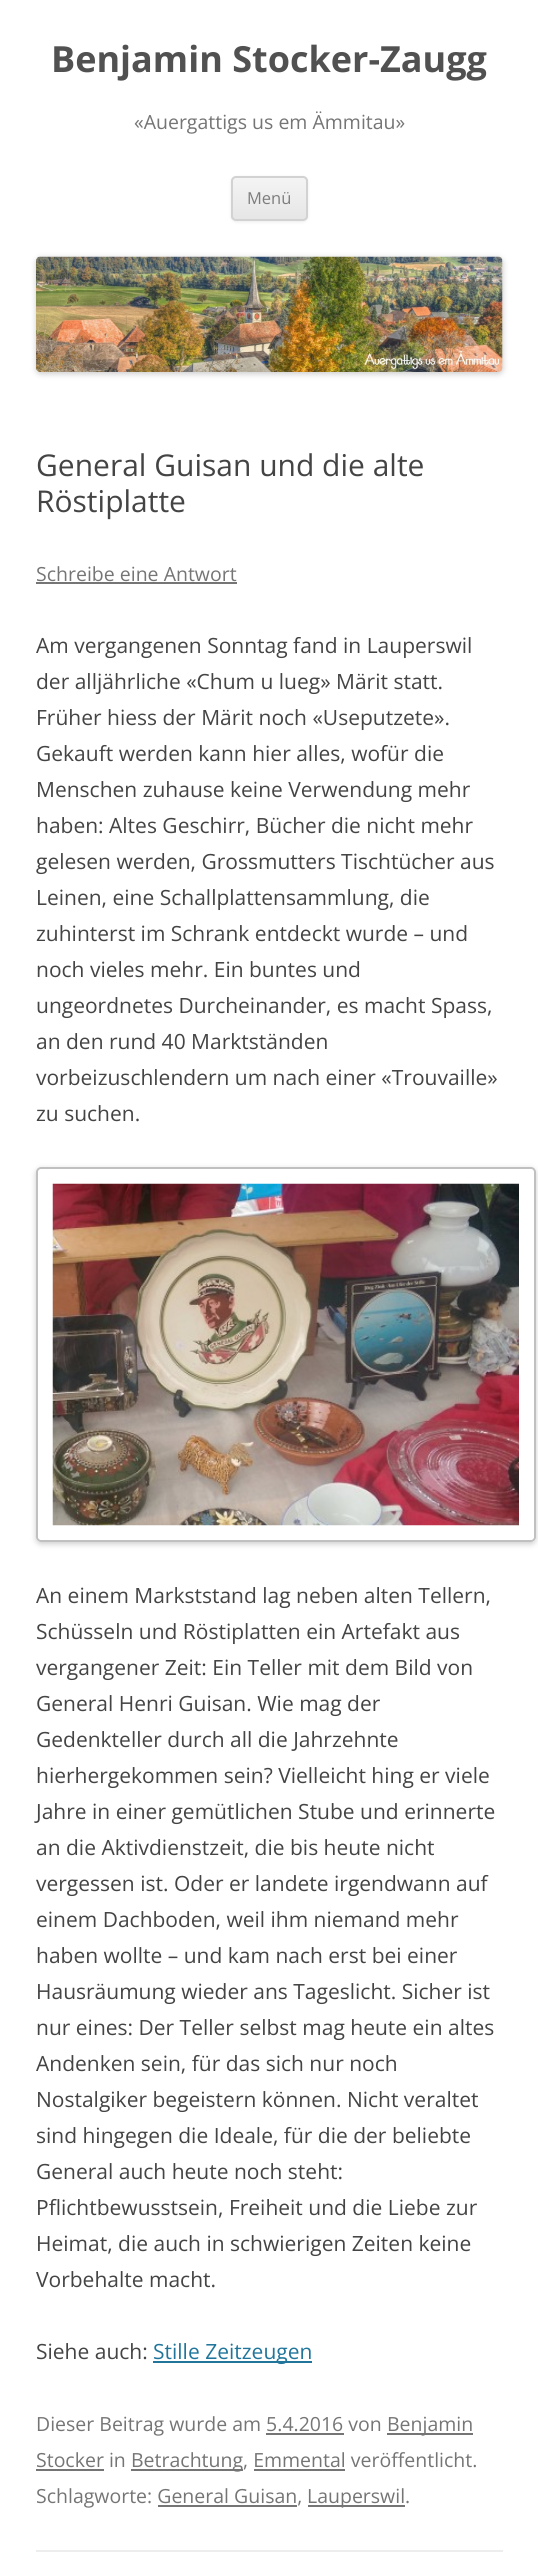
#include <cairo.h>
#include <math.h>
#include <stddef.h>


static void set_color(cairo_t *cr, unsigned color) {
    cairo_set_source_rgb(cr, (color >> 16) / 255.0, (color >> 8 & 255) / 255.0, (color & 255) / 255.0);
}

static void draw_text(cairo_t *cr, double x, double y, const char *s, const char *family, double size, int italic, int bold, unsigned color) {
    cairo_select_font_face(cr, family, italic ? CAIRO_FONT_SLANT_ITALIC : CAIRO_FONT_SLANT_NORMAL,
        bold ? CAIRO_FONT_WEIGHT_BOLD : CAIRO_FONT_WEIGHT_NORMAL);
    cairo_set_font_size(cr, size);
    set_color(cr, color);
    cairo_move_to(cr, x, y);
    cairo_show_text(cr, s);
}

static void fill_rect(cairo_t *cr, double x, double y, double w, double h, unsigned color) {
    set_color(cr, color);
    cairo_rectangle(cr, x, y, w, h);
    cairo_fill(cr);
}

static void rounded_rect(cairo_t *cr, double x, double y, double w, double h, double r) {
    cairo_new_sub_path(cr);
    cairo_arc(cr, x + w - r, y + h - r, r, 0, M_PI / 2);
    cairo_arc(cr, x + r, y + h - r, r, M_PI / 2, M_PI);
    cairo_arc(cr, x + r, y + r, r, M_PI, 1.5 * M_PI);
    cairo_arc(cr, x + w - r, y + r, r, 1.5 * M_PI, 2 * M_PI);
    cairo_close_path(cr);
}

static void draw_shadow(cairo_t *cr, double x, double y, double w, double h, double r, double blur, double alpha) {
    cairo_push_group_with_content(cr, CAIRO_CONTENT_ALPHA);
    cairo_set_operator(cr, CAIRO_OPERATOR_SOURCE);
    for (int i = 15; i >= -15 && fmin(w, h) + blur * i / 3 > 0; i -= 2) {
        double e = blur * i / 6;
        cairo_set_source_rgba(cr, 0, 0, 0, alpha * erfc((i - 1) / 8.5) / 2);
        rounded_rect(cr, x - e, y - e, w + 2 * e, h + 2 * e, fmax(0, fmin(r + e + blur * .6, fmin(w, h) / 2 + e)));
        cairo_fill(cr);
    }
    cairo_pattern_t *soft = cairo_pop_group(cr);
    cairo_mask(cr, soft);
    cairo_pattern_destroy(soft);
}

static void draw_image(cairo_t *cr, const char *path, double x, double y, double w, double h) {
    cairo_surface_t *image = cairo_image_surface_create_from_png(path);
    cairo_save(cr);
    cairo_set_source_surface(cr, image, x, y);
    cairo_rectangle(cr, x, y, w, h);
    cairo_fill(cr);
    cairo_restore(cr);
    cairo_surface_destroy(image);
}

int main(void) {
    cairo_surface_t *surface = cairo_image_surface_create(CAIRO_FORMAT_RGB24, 538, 2552);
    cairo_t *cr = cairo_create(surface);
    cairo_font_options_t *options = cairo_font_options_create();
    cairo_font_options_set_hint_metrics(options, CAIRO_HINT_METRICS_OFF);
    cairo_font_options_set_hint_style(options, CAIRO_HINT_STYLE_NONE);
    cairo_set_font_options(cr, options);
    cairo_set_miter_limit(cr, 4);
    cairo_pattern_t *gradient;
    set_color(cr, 0xFFFFFF);
    cairo_paint(cr);
    draw_text(cr, 51, 72, "Benjamin Stocker-Zaugg", "Open Sans", 36, 0, 1, 0x515151);
    draw_text(cr, 134, 129, "«Auergattigs us em Ämmitau»", "Open Sans", 19.5, 0, 0, 0x757575);
    set_color(cr, 0x404040);
    draw_shadow(cr, 231, 177, 77, 45, 5, 1.5, 0.1);
    cairo_save(cr);
    rounded_rect(cr, 231, 176, 77, 45, 5);
    cairo_clip(cr);
    gradient = cairo_pattern_create_linear(269, 177, 269, 219);
    cairo_pattern_add_color_stop_rgba(gradient, 0, 0.957, 0.957, 0.957, 1);
    cairo_pattern_add_color_stop_rgba(gradient, 1, 0.902, 0.902, 0.902, 1);
    cairo_set_source(cr, gradient);
    cairo_pattern_destroy(gradient);
    cairo_rectangle(cr, 231, 177, 77, 42);
    cairo_fill(cr);
    cairo_restore(cr);
    rounded_rect(cr, 232, 177, 75, 43, 4);
    set_color(cr, 0xD2D2D2);
    cairo_stroke(cr);
    draw_text(cr, 247, 204, "Menü", "Open Sans", 16.5, 0, 0, 0x7C7C7C);
    set_color(cr, 0x000000);
    draw_shadow(cr, 36, 258, 467, 116, 5, 3, 0.2);
    draw_image(cr, "assets/img1.png", 36, 256, 467, 116);
    fill_rect(cr, 36, 2550, 467, 2, 0xEDEDED);
    draw_text(cr, 36, 476, "General Guisan und die alte", "Open Sans", 30, 0, 0, 0x444444);
    draw_text(cr, 36, 512, "Röstiplatte", "Open Sans", 30, 0, 0, 0x444444);
    draw_text(cr, 36, 581, "Schreibe eine Antwort", "Open Sans", 19.5, 0, 0, 0x757575);
    fill_rect(cr, 36, 582, 201, 2, 0x757575);
    draw_text(cr, 36, 653, "Am vergangenen Sonntag fand in Lauperswil", "Open Sans", 21, 0, 0, 0x444444);
    draw_text(cr, 36, 689, "der alljährliche «Chum u lueg» Märit statt.", "Open Sans", 21, 0, 0, 0x444444);
    draw_text(cr, 36, 725, "Früher hiess der Märit noch «Useputzete».", "Open Sans", 21, 0, 0, 0x444444);
    draw_text(cr, 36, 761, "Gekauft werden kann hier alles, wofür die", "Open Sans", 21, 0, 0, 0x444444);
    draw_text(cr, 36, 797, "Menschen zuhause keine Verwendung mehr", "Open Sans", 21, 0, 0, 0x444444);
    draw_text(cr, 36, 833, "haben: Altes Geschirr, Bücher die nicht mehr", "Open Sans", 21, 0, 0, 0x444444);
    draw_text(cr, 36, 869, "gelesen werden, Grossmutters Tischtücher aus", "Open Sans", 21, 0, 0, 0x444444);
    draw_text(cr, 36, 905, "Leinen, eine Schallplattensammlung, die", "Open Sans", 21, 0, 0, 0x444444);
    draw_text(cr, 36, 941, "zuhinterst im Schrank entdeckt wurde – und", "Open Sans", 21, 0, 0, 0x444444);
    draw_text(cr, 36, 977, "noch vieles mehr. Ein buntes und", "Open Sans", 21, 0, 0, 0x444444);
    draw_text(cr, 36, 1013, "ungeordnetes Durcheinander, es macht Spass,", "Open Sans", 21, 0, 0, 0x444444);
    draw_text(cr, 36, 1049, "an den rund 40 Marktständen", "Open Sans", 21, 0, 0, 0x444444);
    draw_text(cr, 36, 1085, "vorbeizuschlendern um nach einer «Trouvaille»", "Open Sans", 21, 0, 0, 0x444444);
    draw_text(cr, 36, 1121, "zu suchen.", "Open Sans", 21, 0, 0, 0x444444);
    cairo_save(cr);
    cairo_set_fill_rule(cr, CAIRO_FILL_RULE_EVEN_ODD);
    cairo_new_path(cr);
    cairo_move_to(cr, 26, 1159);
    cairo_line_to(cr, 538, 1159);
    cairo_line_to(cr, 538, 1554);
    cairo_line_to(cr, 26, 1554);
    cairo_close_path(cr);
    cairo_move_to(cr, 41, 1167);
    cairo_line_to(cr, 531, 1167);
    cairo_curve_to(cr, 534, 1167, 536, 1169, 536, 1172);
    cairo_line_to(cr, 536, 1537);
    cairo_curve_to(cr, 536, 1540, 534, 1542, 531, 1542);
    cairo_line_to(cr, 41, 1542);
    cairo_curve_to(cr, 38, 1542, 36, 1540, 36, 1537);
    cairo_line_to(cr, 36, 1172);
    cairo_curve_to(cr, 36, 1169, 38, 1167, 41, 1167);
    cairo_close_path(cr);
    cairo_clip(cr);
    set_color(cr, 0x000000);
    draw_shadow(cr, 36, 1169, 500, 375, 5, 3, 0.2);
    cairo_restore(cr);
    rounded_rect(cr, 37, 1168, 498, 373, 4);
    set_color(cr, 0xC0C0C0);
    cairo_stroke(cr);
    draw_image(cr, "assets/img2.png", 52, 1183, 467, 343);
    draw_text(cr, 36, 1603, "An einem Markststand lag neben alten Tellern,", "Open Sans", 21, 0, 0, 0x444444);
    draw_text(cr, 36, 1639, "Schüsseln und Röstiplatten ein Artefakt aus", "Open Sans", 21, 0, 0, 0x444444);
    draw_text(cr, 36, 1675, "vergangener Zeit: Ein Teller mit dem Bild von", "Open Sans", 21, 0, 0, 0x444444);
    draw_text(cr, 36, 1711, "General Henri Guisan. Wie mag der", "Open Sans", 21, 0, 0, 0x444444);
    draw_text(cr, 36, 1747, "Gedenkteller durch all die Jahrzehnte", "Open Sans", 21, 0, 0, 0x444444);
    draw_text(cr, 36, 1783, "hierhergekommen sein? Vielleicht hing er viele", "Open Sans", 21, 0, 0, 0x444444);
    draw_text(cr, 36, 1819, "Jahre in einer gemütlichen Stube und erinnerte", "Open Sans", 21, 0, 0, 0x444444);
    draw_text(cr, 36, 1855, "an die Aktivdienstzeit, die bis heute nicht", "Open Sans", 21, 0, 0, 0x444444);
    draw_text(cr, 36, 1891, "vergessen ist. Oder er landete irgendwann auf", "Open Sans", 21, 0, 0, 0x444444);
    draw_text(cr, 36, 1927, "einem Dachboden, weil ihm niemand mehr", "Open Sans", 21, 0, 0, 0x444444);
    draw_text(cr, 36, 1963, "haben wollte – und kam nach erst bei einer", "Open Sans", 21, 0, 0, 0x444444);
    draw_text(cr, 36, 1999, "Hausräumung wieder ans Tageslicht. Sicher ist", "Open Sans", 21, 0, 0, 0x444444);
    draw_text(cr, 36, 2035, "nur eines: Der Teller selbst mag heute ein altes", "Open Sans", 21, 0, 0, 0x444444);
    draw_text(cr, 36, 2071, "Andenken sein, für das sich nur noch", "Open Sans", 21, 0, 0, 0x444444);
    draw_text(cr, 36, 2107, "Nostalgiker begeistern können. Nicht veraltet", "Open Sans", 21, 0, 0, 0x444444);
    draw_text(cr, 36, 2143, "sind hingegen die Ideale, für die der beliebte", "Open Sans", 21, 0, 0, 0x444444);
    draw_text(cr, 36, 2179, "General auch heute noch steht:", "Open Sans", 21, 0, 0, 0x444444);
    draw_text(cr, 36, 2215, "Pflichtbewusstsein, Freiheit und die Liebe zur", "Open Sans", 21, 0, 0, 0x444444);
    draw_text(cr, 36, 2251, "Heimat, die auch in schwierigen Zeiten keine", "Open Sans", 21, 0, 0, 0x444444);
    draw_text(cr, 36, 2287, "Vorbehalte macht.", "Open Sans", 21, 0, 0, 0x444444);
    draw_text(cr, 36, 2359, "Siehe auch:", "Open Sans", 21, 0, 0, 0x444444);
    fill_rect(cr, 153, 2361, 159, 2, 0x21759B);
    draw_text(cr, 153, 2359, "Stille Zeitzeugen", "Open Sans", 21, 0, 0, 0x21759B);
    draw_text(cr, 36, 2431, "Dieser Beitrag wurde am 5.4.2016 von", "Open Sans", 19.5, 0, 0, 0x757575);
    fill_rect(cr, 387, 2433, 86, 2, 0x757575);
    draw_text(cr, 387, 2431, "Benjamin", "Open Sans", 19.5, 0, 0, 0x757575);
    fill_rect(cr, 266, 2433, 78, 2, 0x757575);
    draw_text(cr, 36, 2467, "Stocker in", "Open Sans", 19.5, 0, 0, 0x757575);
    fill_rect(cr, 36, 2469, 68, 2, 0x757575);
    fill_rect(cr, 131, 2469, 112, 2, 0x757575);
    draw_text(cr, 131, 2467, "Betrachtung, Emmental veröffentlicht.", "Open Sans", 19.5, 0, 0, 0x757575);
    fill_rect(cr, 254, 2469, 91, 2, 0x757575);
    draw_text(cr, 36, 2503, "Schlagworte: General Guisan,", "Open Sans", 19.5, 0, 0, 0x757575);
    fill_rect(cr, 308, 2505, 97, 2, 0x757575);
    draw_text(cr, 307, 2503, "Lauperswil.", "Open Sans", 19.5, 0, 0, 0x757575);
    fill_rect(cr, 158, 2505, 139, 2, 0x757575);
    cairo_surface_write_to_png(surface, "output.png");
    cairo_font_options_destroy(options);
    cairo_destroy(cr);
    cairo_surface_destroy(surface);
    return 0;
}
